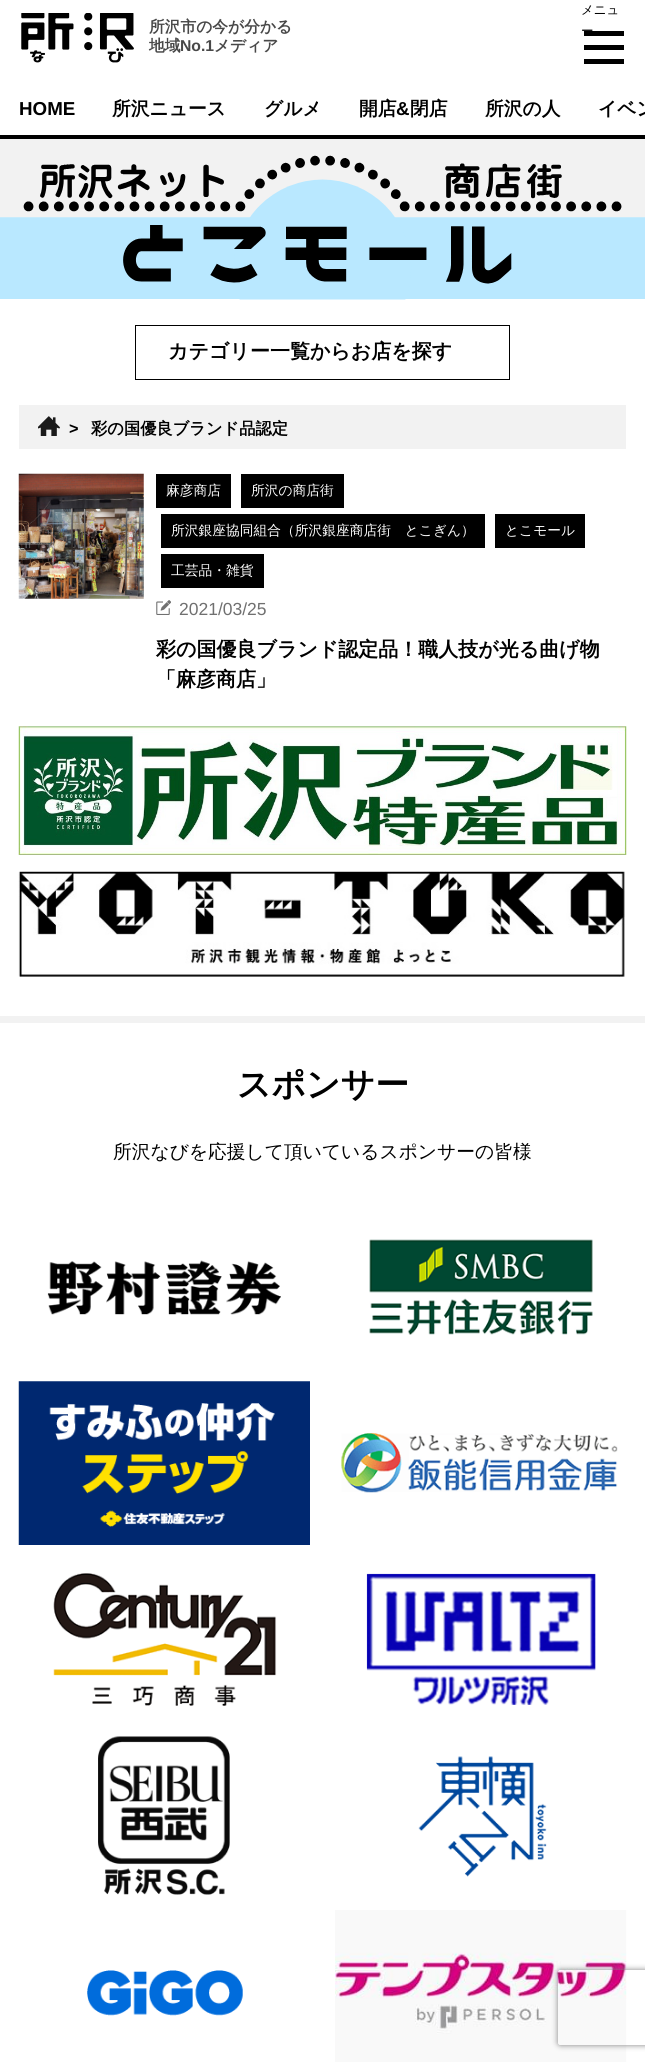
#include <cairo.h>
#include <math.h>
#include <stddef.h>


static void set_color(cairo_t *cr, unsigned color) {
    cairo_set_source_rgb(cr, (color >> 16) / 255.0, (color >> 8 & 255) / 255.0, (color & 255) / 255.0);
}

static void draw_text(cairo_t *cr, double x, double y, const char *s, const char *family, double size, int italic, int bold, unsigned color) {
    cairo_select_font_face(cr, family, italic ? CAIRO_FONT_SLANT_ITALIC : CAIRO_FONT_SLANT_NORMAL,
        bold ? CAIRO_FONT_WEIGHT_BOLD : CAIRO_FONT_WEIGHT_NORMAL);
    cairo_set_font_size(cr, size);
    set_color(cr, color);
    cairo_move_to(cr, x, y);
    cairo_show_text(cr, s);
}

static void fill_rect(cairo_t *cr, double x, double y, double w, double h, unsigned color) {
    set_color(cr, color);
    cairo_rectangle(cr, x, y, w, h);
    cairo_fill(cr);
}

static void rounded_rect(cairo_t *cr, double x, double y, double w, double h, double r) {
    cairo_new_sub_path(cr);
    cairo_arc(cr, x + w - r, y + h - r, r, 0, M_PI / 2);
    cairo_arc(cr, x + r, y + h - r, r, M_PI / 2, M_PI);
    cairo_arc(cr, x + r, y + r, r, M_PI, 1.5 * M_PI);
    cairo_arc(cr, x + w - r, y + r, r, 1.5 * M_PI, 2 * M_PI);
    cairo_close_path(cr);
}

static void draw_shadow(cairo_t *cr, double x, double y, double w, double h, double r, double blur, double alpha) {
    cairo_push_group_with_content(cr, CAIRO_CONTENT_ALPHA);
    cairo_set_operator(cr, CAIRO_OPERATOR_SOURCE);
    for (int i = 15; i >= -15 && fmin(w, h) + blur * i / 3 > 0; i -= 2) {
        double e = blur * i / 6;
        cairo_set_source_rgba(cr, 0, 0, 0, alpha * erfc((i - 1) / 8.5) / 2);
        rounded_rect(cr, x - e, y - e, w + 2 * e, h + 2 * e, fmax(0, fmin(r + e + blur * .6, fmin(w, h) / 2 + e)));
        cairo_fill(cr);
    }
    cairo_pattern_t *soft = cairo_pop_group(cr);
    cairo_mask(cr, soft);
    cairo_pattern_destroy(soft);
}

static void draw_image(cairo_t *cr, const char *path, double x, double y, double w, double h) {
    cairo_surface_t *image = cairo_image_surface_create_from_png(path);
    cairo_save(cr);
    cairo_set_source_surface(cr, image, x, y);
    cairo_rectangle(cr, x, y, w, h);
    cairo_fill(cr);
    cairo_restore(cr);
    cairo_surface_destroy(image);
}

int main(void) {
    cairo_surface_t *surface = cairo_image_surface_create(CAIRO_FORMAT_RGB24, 645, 2062);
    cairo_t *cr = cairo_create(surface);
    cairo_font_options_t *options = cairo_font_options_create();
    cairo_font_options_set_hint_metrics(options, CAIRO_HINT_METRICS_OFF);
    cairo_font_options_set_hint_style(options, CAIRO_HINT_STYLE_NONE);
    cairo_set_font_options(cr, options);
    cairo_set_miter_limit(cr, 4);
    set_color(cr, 0xFFFFFF);
    cairo_paint(cr);
    draw_image(cr, "assets/img1.png", 21, 13, 113, 50);
    draw_text(cr, 149, 32, "所沢市の今が分かる", "WenQuanYi Zen Hei", 15.75, 0, 1, 0x484848);
    draw_text(cr, 149, 51, "地域", "WenQuanYi Zen Hei", 15.75, 0, 1, 0x484848);
    draw_text(cr, 180, 51, "No.1", "Liberation Sans", 15.75, 0, 1, 0x484848);
    draw_text(cr, 214, 51, "メディア", "WenQuanYi Zen Hei", 15.75, 0, 1, 0x484848);
    draw_text(cr, 581, 14, "メニュ", "WenQuanYi Zen Hei Medium", 12.5, 0, 0, 0x000000);
    draw_text(cr, 581, 35, "ー", "WenQuanYi Zen Hei Medium", 12.5, 0, 0, 0x000000);
    fill_rect(cr, 584, 31, 40, 5, 0x000000);
    fill_rect(cr, 584, 45, 40, 5, 0x000000);
    fill_rect(cr, 584, 59, 40, 5, 0x000000);
    fill_rect(cr, 0, 135, 645, 4, 0x000000);
    draw_text(cr, 19, 115, "HOME", "Liberation Sans", 18.75, 0, 1, 0x000000);
    draw_text(cr, 112, 115, "所沢ニュース", "WenQuanYi Zen Hei", 18.75, 0, 1, 0x000000);
    draw_text(cr, 264, 115, "グルメ", "WenQuanYi Zen Hei", 18.75, 0, 1, 0x000000);
    draw_text(cr, 359, 115, "開店", "WenQuanYi Zen Hei", 18.75, 0, 1, 0x000000);
    draw_text(cr, 396, 115, "&", "Liberation Sans", 18.75, 0, 1, 0x000000);
    draw_text(cr, 410, 115, "閉店", "WenQuanYi Zen Hei", 18.75, 0, 1, 0x000000);
    draw_text(cr, 485, 115, "所沢の人", "WenQuanYi Zen Hei", 18.75, 0, 1, 0x000000);
    draw_text(cr, 598, 115, "イベン", "WenQuanYi Zen Hei", 18.75, 0, 1, 0x000000);
    draw_image(cr, "assets/img2.png", 0, 139, 645, 161);
    cairo_rectangle(cr, 135.5, 325.5, 374, 54);
    cairo_set_line_width(cr, 1);
    cairo_stroke(cr);
    draw_text(cr, 168, 358, "カテゴリー一覧からお店を探す", "WenQuanYi Zen Hei", 20, 0, 1, 0x000000);
    fill_rect(cr, 19, 405, 607, 44, 0xF2F2F2);
    draw_image(cr, "assets/img3.png", 38, 416, 22, 20);
    draw_text(cr, 69, 434, ">", "Liberation Sans", 16.25, 0, 1, 0x000000);
    draw_text(cr, 91, 434, "彩の国優良ブランド品認定", "WenQuanYi Zen Hei", 16.25, 0, 1, 0x000000);
    draw_image(cr, "assets/img4.png", 18, 473, 126, 126);
    fill_rect(cr, 156, 474, 75, 34, 0x000000);
    draw_text(cr, 166, 495, "麻彦商店", "WenQuanYi Zen Hei Medium", 13.75, 0, 0, 0xFFFFFF);
    fill_rect(cr, 241, 474, 103, 34, 0x000000);
    draw_text(cr, 251, 495, "所沢の商店街", "WenQuanYi Zen Hei Medium", 13.75, 0, 0, 0xFFFFFF);
    fill_rect(cr, 161, 514, 324, 34, 0x000000);
    draw_text(cr, 171, 535, "所沢銀座協同組合（所沢銀座商店街　とこぎん）", "WenQuanYi Zen Hei Medium", 13.75, 0, 0, 0xFFFFFF);
    fill_rect(cr, 495, 514, 90, 34, 0x000000);
    draw_text(cr, 505, 535, "とこモール", "WenQuanYi Zen Hei Medium", 13.75, 0, 0, 0xFFFFFF);
    fill_rect(cr, 161, 554, 103, 34, 0x000000);
    draw_text(cr, 171, 575, "工芸品・雑貨", "WenQuanYi Zen Hei Medium", 13.75, 0, 0, 0xFFFFFF);
    draw_image(cr, "assets/img5.png", 156, 600, 15, 15);
    draw_text(cr, 179, 615, "2021/03/25", "Liberation Sans", 17.5, 0, 0, 0x707070);
    draw_text(cr, 156, 656, "彩の国優良ブランド認定品！職人技が光る曲げ物", "WenQuanYi Zen Hei", 20, 0, 1, 0x000000);
    draw_text(cr, 156, 686, "「麻彦商店」", "WenQuanYi Zen Hei", 20, 0, 1, 0x000000);
    draw_image(cr, "assets/img6.png", 18, 726, 609, 129);
    draw_image(cr, "assets/img7.png", 18, 871, 607, 106);
    fill_rect(cr, 0, 1016, 645, 7, 0xF2F2F2);
    draw_text(cr, 237, 1096, "スポンサー", "WenQuanYi Zen Hei", 33.75, 0, 1, 0x000000);
    draw_text(cr, 113, 1158, "所沢なびを応援して頂いているスポンサーの皆様", "WenQuanYi Zen Hei Medium", 18.75, 0, 0, 0x000000);
    draw_image(cr, "assets/img8.png", 47, 1260, 234, 55);
    draw_image(cr, "assets/img9.png", 369, 1239, 224, 96);
    draw_image(cr, "assets/img10.png", 18, 1381, 292, 164);
    draw_image(cr, "assets/img11.png", 341, 1433, 277, 60);
    draw_image(cr, "assets/img12.png", 53, 1573, 224, 133);
    draw_image(cr, "assets/img13.png", 366, 1573, 230, 132);
    draw_image(cr, "assets/img14.png", 98, 1736, 132, 159);
    draw_image(cr, "assets/img15.png", 418, 1756, 129, 121);
    draw_image(cr, "assets/img16.png", 87, 1970, 156, 46);
    draw_image(cr, "assets/img17.png", 335, 1910, 292, 152);
    cairo_save(cr);
    cairo_set_fill_rule(cr, CAIRO_FILL_RULE_EVEN_ODD);
    cairo_new_path(cr);
    cairo_move_to(cr, 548, 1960);
    cairo_line_to(cr, 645, 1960);
    cairo_line_to(cr, 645, 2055);
    cairo_line_to(cr, 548, 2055);
    cairo_close_path(cr);
    cairo_move_to(cr, 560.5, 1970);
    cairo_line_to(cr, 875.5, 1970);
    cairo_curve_to(cr, 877, 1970, 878, 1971, 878, 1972.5);
    cairo_line_to(cr, 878, 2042.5);
    cairo_curve_to(cr, 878, 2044, 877, 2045, 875.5, 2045);
    cairo_line_to(cr, 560.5, 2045);
    cairo_curve_to(cr, 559, 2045, 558, 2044, 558, 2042.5);
    cairo_line_to(cr, 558, 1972.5);
    cairo_curve_to(cr, 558, 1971, 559, 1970, 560.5, 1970);
    cairo_close_path(cr);
    cairo_clip(cr);
    set_color(cr, 0x808080);
    draw_shadow(cr, 558, 1970, 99, 75, 2.5, 3, 1);
    cairo_restore(cr);
    cairo_surface_write_to_png(surface, "output.png");
    cairo_font_options_destroy(options);
    cairo_destroy(cr);
    cairo_surface_destroy(surface);
    return 0;
}
